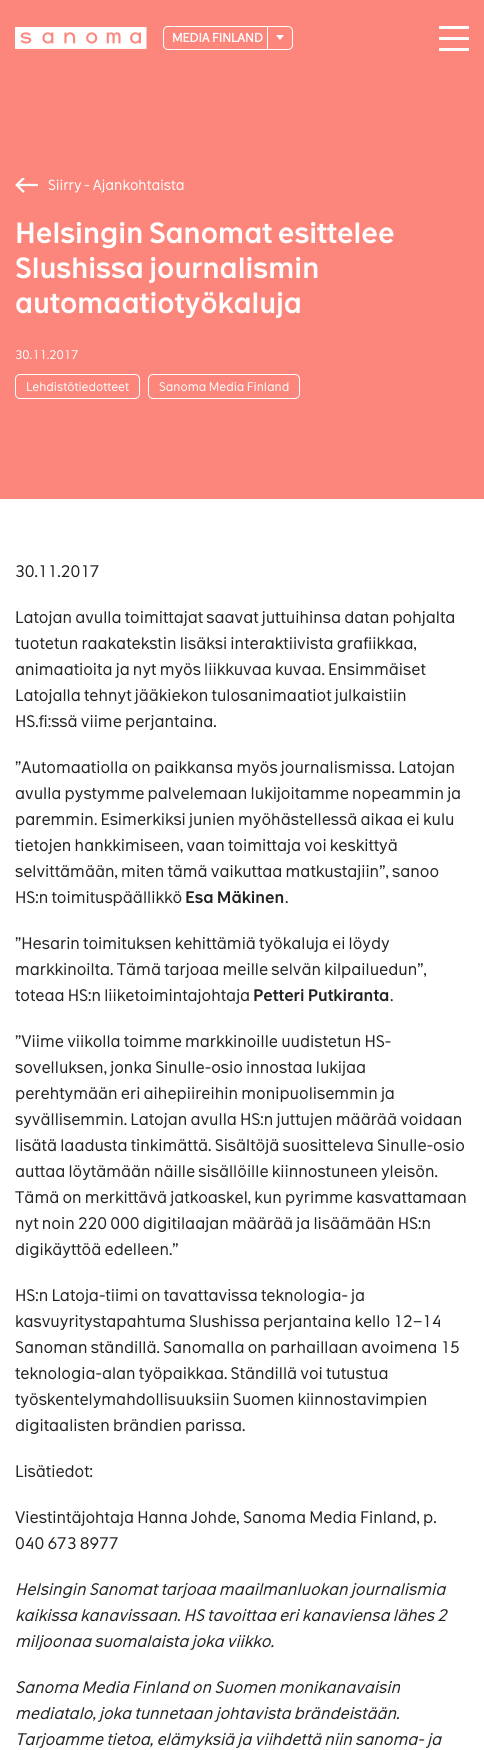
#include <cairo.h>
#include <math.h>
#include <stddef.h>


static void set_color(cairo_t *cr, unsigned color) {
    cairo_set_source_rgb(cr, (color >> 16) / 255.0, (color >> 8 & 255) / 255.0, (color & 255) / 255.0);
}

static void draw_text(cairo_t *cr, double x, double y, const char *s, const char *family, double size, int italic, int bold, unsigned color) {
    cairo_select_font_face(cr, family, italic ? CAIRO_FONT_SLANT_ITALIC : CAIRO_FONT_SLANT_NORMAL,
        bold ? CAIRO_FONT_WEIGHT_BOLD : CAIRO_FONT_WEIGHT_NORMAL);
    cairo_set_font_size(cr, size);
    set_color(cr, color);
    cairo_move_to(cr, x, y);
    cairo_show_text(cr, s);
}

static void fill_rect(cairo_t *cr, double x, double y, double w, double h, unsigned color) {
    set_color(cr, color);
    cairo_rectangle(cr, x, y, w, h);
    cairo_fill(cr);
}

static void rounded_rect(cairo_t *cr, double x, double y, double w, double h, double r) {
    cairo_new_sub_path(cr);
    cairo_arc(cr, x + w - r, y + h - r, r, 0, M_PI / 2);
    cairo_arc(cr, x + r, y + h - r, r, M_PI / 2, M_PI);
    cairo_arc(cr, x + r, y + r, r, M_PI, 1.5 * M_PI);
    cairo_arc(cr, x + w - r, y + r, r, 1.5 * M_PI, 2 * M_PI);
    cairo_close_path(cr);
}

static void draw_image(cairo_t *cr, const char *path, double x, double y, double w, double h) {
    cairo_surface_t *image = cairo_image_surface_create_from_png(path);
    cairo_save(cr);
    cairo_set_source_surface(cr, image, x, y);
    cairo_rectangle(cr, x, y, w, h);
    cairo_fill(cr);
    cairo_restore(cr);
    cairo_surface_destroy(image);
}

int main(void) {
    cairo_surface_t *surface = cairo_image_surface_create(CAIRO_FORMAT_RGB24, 484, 1750);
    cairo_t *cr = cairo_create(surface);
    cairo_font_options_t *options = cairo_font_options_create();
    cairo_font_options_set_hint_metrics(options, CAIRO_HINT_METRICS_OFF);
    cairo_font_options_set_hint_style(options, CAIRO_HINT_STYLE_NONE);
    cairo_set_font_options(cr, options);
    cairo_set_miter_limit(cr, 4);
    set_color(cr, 0xFFFFFF);
    cairo_paint(cr);
    fill_rect(cr, 0, 0, 484, 499, 0xFD867C);
    draw_image(cr, "assets/img1.png", 15, 27, 132, 22);
    rounded_rect(cr, 163.5, 26.5, 129, 23, 4.5);
    set_color(cr, 0xFFFFFF);
    cairo_set_line_width(cr, 1);
    cairo_stroke(cr);
    draw_text(cr, 172, 42, "MEDIA FINLAND", "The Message", 12, 0, 1, 0xFFFFFF);
    fill_rect(cr, 267, 27, 1, 22, 0xFFFFFF);
    cairo_new_path(cr);
    cairo_move_to(cr, 276, 35);
    cairo_line_to(cr, 284, 35);
    cairo_line_to(cr, 280, 40);
    cairo_close_path(cr);
    cairo_fill(cr);
    fill_rect(cr, 439, 26, 30, 3, 0xFFFFFF);
    fill_rect(cr, 439, 37, 30, 3, 0xFFFFFF);
    fill_rect(cr, 439, 48, 30, 3, 0xFFFFFF);
    draw_image(cr, "assets/img2.png", 15, 178, 23, 15);
    draw_text(cr, 48, 190, "Siirry - Ajankohtaista", "The Message", 14, 0, 0, 0xFFFFFF);
    draw_text(cr, 15, 243, "Helsingin Sanomat esittelee", "The Message SemiBold", 28, 0, 0, 0xFFFFFF);
    draw_text(cr, 15, 278, "Slushissa journalismin", "The Message SemiBold", 28, 0, 0, 0xFFFFFF);
    draw_text(cr, 15, 313, "automaatiotyökaluja", "The Message SemiBold", 28, 0, 0, 0xFFFFFF);
    draw_text(cr, 15, 359, "30.11.2017", "The Message", 12, 0, 0, 0xFFFFFF);
    rounded_rect(cr, 15.5, 374.5, 124, 24, 4.5);
    cairo_stroke(cr);
    draw_text(cr, 26, 391, "Lehdistötiedotteet", "The Message", 12, 0, 0, 0xFFFFFF);
    rounded_rect(cr, 148.5, 374.5, 151, 24, 4.5);
    cairo_stroke(cr);
    draw_text(cr, 159, 391, "Sanoma Media Finland", "The Message", 12, 0, 0, 0xFFFFFF);
    draw_text(cr, 15, 577, "30.11.2017", "The Message", 16, 0, 0, 0x222222);
    draw_text(cr, 15, 623, "Latojan avulla toimittajat saavat juttuihinsa datan pohjalta", "The Message", 16, 0, 0, 0x222222);
    draw_text(cr, 15, 649, "tuotetun raakatekstin lisäksi interaktiivista grafiikkaa,", "The Message", 16, 0, 0, 0x222222);
    draw_text(cr, 15, 675, "animaatioita ja nyt myös liikkuvaa kuvaa. Ensimmäiset", "The Message", 16, 0, 0, 0x222222);
    draw_text(cr, 15, 701, "Latojalla tehnyt jääkiekon tulosanimaatiot julkaistiin", "The Message", 16, 0, 0, 0x222222);
    draw_text(cr, 15, 727, "HS.fi:ssä viime perjantaina.", "The Message", 16, 0, 0, 0x222222);
    draw_text(cr, 15, 773, "”Automaatiolla on paikkansa myös journalismissa. Latojan", "The Message", 16, 0, 0, 0x222222);
    draw_text(cr, 15, 799, "avulla pystymme palvelemaan lukijoitamme nopeammin ja", "The Message", 16, 0, 0, 0x222222);
    draw_text(cr, 15, 825, "paremmin. Esimerkiksi junien myöhästellessä aikaa ei kulu", "The Message", 16, 0, 0, 0x222222);
    draw_text(cr, 15, 851, "tietojen hankkimiseen, vaan toimittaja voi keskittyä", "The Message", 16, 0, 0, 0x222222);
    draw_text(cr, 15, 877, "selvittämään, miten tämä vaikuttaa matkustajiin”, sanoo", "The Message", 16, 0, 0, 0x222222);
    draw_text(cr, 15, 903, "HS:n toimituspäällikkö", "The Message", 16, 0, 0, 0x222222);
    draw_text(cr, 185, 903, "Esa Mäkinen", "The Message SemiBold", 16, 0, 0, 0x222222);
    draw_text(cr, 285, 903, ".", "The Message", 16, 0, 0, 0x222222);
    draw_text(cr, 15, 949, "”Hesarin toimituksen kehittämiä työkaluja ei löydy", "The Message", 16, 0, 0, 0x222222);
    draw_text(cr, 15, 975, "markkinoilta. Tämä tarjoaa meille selvän kilpailuedun”,", "The Message", 16, 0, 0, 0x222222);
    draw_text(cr, 15, 1001, "toteaa HS:n liiketoimintajohtaja", "The Message", 16, 0, 0, 0x222222);
    draw_text(cr, 253, 1001, "Petteri Putkiranta", "The Message SemiBold", 16, 0, 0, 0x222222);
    draw_text(cr, 390, 1001, ".", "The Message", 16, 0, 0, 0x222222);
    draw_text(cr, 15, 1047, "”Viime viikolla toimme markkinoille uudistetun HS-", "The Message", 16, 0, 0, 0x222222);
    draw_text(cr, 15, 1073, "sovelluksen, jonka Sinulle-osio innostaa lukijaa", "The Message", 16, 0, 0, 0x222222);
    draw_text(cr, 15, 1099, "perehtymään eri aihepiireihin monipuolisemmin ja", "The Message", 16, 0, 0, 0x222222);
    draw_text(cr, 15, 1125, "syvällisemmin. Latojan avulla HS:n juttujen määrää voidaan", "The Message", 16, 0, 0, 0x222222);
    draw_text(cr, 15, 1151, "lisätä laadusta tinkimättä. Sisältöjä suositteleva Sinulle-osio", "The Message", 16, 0, 0, 0x222222);
    draw_text(cr, 15, 1177, "auttaa löytämään näille sisällöille kiinnostuneen yleisön.", "The Message", 16, 0, 0, 0x222222);
    draw_text(cr, 15, 1203, "Tämä on merkittävä jatkoaskel, kun pyrimme kasvattamaan", "The Message", 16, 0, 0, 0x222222);
    draw_text(cr, 15, 1229, "nyt noin 220 000 digitilaajan määrää ja lisäämään HS:n", "The Message", 16, 0, 0, 0x222222);
    draw_text(cr, 15, 1255, "digikäyttöä edelleen.”", "The Message", 16, 0, 0, 0x222222);
    draw_text(cr, 15, 1301, "HS:n Latoja-tiimi on tavattavissa teknologia- ja", "The Message", 16, 0, 0, 0x222222);
    draw_text(cr, 15, 1327, "kasvuyritystapahtuma Slushissa perjantaina kello 12", "The Message", 16, 0, 0, 0x222222);
    draw_text(cr, 413, 1327, "−", "Liberation Sans", 16, 0, 0, 0x222222);
    draw_text(cr, 422, 1327, "14", "The Message", 16, 0, 0, 0x222222);
    draw_text(cr, 15, 1353, "Sanoman ständillä. Sanomalla on parhaillaan avoimena 15", "The Message", 16, 0, 0, 0x222222);
    draw_text(cr, 15, 1379, "teknologia-alan työpaikkaa. Ständillä voi tutustua", "The Message", 16, 0, 0, 0x222222);
    draw_text(cr, 15, 1405, "työskentelymahdollisuuksiin Suomen kiinnostavimpien", "The Message", 16, 0, 0, 0x222222);
    draw_text(cr, 15, 1431, "digitaalisten brändien parissa.", "The Message", 16, 0, 0, 0x222222);
    draw_text(cr, 15, 1477, "Lisätiedot:", "The Message", 16, 0, 0, 0x222222);
    draw_text(cr, 15, 1523, "Viestintäjohtaja Hanna Johde, Sanoma Media Finland, p.", "The Message", 16, 0, 0, 0x222222);
    draw_text(cr, 15, 1549, "040 673 8977", "The Message", 16, 0, 0, 0x222222);
    draw_text(cr, 15, 1595, "Helsingin Sanomat tarjoaa maailmanluokan journalismia", "The Message", 16, 1, 0, 0x222222);
    draw_text(cr, 15, 1621, "kaikissa kanavissaan. HS tavoittaa eri kanaviensa lähes 2", "The Message", 16, 1, 0, 0x222222);
    draw_text(cr, 15, 1647, "miljoonaa suomalaista joka viikko.", "The Message", 16, 1, 0, 0x222222);
    draw_text(cr, 15, 1693, "Sanoma Media Finland on Suomen monikanavaisin", "The Message", 16, 1, 0, 0x222222);
    draw_text(cr, 15, 1719, "mediatalo, joka tunnetaan johtavista brändeistään.", "The Message", 16, 1, 0, 0x222222);
    draw_text(cr, 15, 1745, "Tarjoamme tietoa, elämyksiä ja viihdettä niin sanoma- ja", "The Message", 16, 1, 0, 0x222222);
    cairo_surface_write_to_png(surface, "output.png");
    cairo_font_options_destroy(options);
    cairo_destroy(cr);
    cairo_surface_destroy(surface);
    return 0;
}
